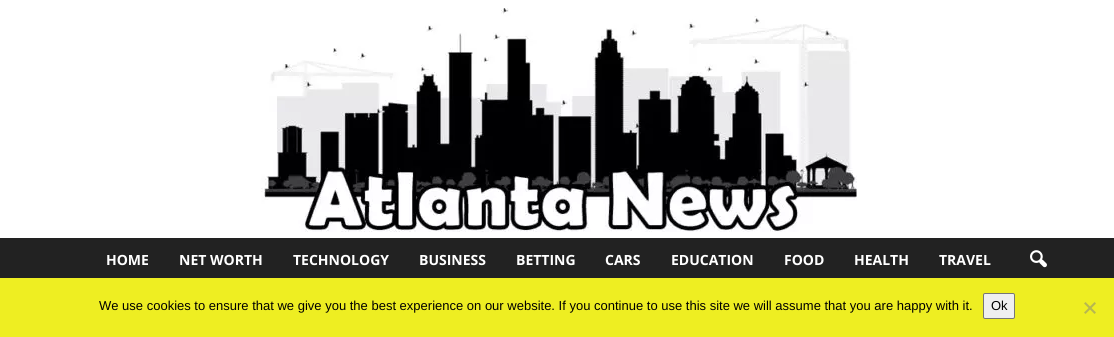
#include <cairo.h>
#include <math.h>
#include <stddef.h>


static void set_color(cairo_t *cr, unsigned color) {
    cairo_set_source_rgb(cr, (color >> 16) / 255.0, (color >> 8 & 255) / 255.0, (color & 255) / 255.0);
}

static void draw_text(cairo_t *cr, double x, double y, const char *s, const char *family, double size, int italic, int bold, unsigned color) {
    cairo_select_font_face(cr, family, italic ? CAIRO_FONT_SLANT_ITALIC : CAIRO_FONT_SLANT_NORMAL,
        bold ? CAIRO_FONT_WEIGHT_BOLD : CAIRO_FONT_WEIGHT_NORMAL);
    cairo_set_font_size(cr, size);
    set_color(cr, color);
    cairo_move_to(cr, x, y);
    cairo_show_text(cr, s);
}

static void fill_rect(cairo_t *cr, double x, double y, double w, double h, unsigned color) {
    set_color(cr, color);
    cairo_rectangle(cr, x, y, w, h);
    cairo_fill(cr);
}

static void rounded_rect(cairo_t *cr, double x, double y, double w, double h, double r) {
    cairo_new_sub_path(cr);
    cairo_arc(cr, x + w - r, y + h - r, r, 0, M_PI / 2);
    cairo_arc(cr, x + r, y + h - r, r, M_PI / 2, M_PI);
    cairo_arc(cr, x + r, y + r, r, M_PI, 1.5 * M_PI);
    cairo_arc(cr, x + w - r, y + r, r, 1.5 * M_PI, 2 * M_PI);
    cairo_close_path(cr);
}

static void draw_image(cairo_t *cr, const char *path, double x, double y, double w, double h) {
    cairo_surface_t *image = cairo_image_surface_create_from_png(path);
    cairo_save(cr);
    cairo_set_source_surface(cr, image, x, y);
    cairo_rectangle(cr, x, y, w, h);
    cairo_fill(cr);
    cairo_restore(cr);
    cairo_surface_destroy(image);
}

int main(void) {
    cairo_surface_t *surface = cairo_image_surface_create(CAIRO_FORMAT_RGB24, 1114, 337);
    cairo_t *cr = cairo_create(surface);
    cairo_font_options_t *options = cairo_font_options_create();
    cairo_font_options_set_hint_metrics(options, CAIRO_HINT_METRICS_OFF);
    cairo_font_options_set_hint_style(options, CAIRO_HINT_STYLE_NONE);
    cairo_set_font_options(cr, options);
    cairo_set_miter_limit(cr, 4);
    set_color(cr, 0xFFFFFF);
    cairo_paint(cr);
    draw_image(cr, "assets/img1.png", 261, 8, 596, 224);
    fill_rect(cr, 0, 238, 1114, 40, 0x222222);
    draw_text(cr, 106, 265, "HOME", "Open Sans", 14, 0, 1, 0xFFFFFF);
    draw_text(cr, 179, 265, "NET WORTH", "Open Sans", 14, 0, 1, 0xFFFFFF);
    draw_text(cr, 293, 265, "TECHNOLOGY", "Open Sans", 14, 0, 1, 0xFFFFFF);
    draw_text(cr, 419, 265, "BUSINESS", "Open Sans", 14, 0, 1, 0xFFFFFF);
    draw_text(cr, 516, 265, "BETTING", "Open Sans", 14, 0, 1, 0xFFFFFF);
    draw_text(cr, 605, 265, "CARS", "Open Sans", 14, 0, 1, 0xFFFFFF);
    draw_text(cr, 671, 265, "EDUCATION", "Open Sans", 14, 0, 1, 0xFFFFFF);
    draw_text(cr, 784, 265, "FOOD", "Open Sans", 14, 0, 1, 0xFFFFFF);
    draw_text(cr, 854, 265, "HEALTH", "Open Sans", 14, 0, 1, 0xFFFFFF);
    draw_text(cr, 939, 265, "TRAVEL", "Open Sans", 14, 0, 1, 0xFFFFFF);
    draw_image(cr, "assets/img2.png", 1030, 250, 17, 18);
    fill_rect(cr, 0, 278, 1114, 59, 0xEEEE22);
    draw_text(cr, 99, 310, "We use cookies to ensure that we give you the best experience on our website. If you continue to use this site we will assume that you are happy with it.", "Liberation Sans", 13, 0, 0, 0x000000);
    set_color(cr, 0xEFEFEF);
    rounded_rect(cr, 983.5, 293.5, 31, 25, 1.5);
    cairo_fill_preserve(cr);
    set_color(cr, 0x767676);
    cairo_set_line_width(cr, 1);
    cairo_stroke(cr);
    draw_text(cr, 991, 310, "Ok", "Liberation Sans", 13, 0, 0, 0x000000);
    set_color(cr, 0xB7B751);
    cairo_new_path(cr);
    cairo_move_to(cr, 1094.5, 302);
    cairo_line_to(cr, 1096, 303.5);
    cairo_line_to(cr, 1085.5, 314);
    cairo_line_to(cr, 1084, 312.5);
    cairo_close_path(cr);
    cairo_fill(cr);
    cairo_new_path(cr);
    cairo_move_to(cr, 1084, 303.5);
    cairo_line_to(cr, 1085.5, 302);
    cairo_line_to(cr, 1096, 312.5);
    cairo_line_to(cr, 1094.5, 314);
    cairo_close_path(cr);
    cairo_fill(cr);
    cairo_surface_write_to_png(surface, "output.png");
    cairo_font_options_destroy(options);
    cairo_destroy(cr);
    cairo_surface_destroy(surface);
    return 0;
}
